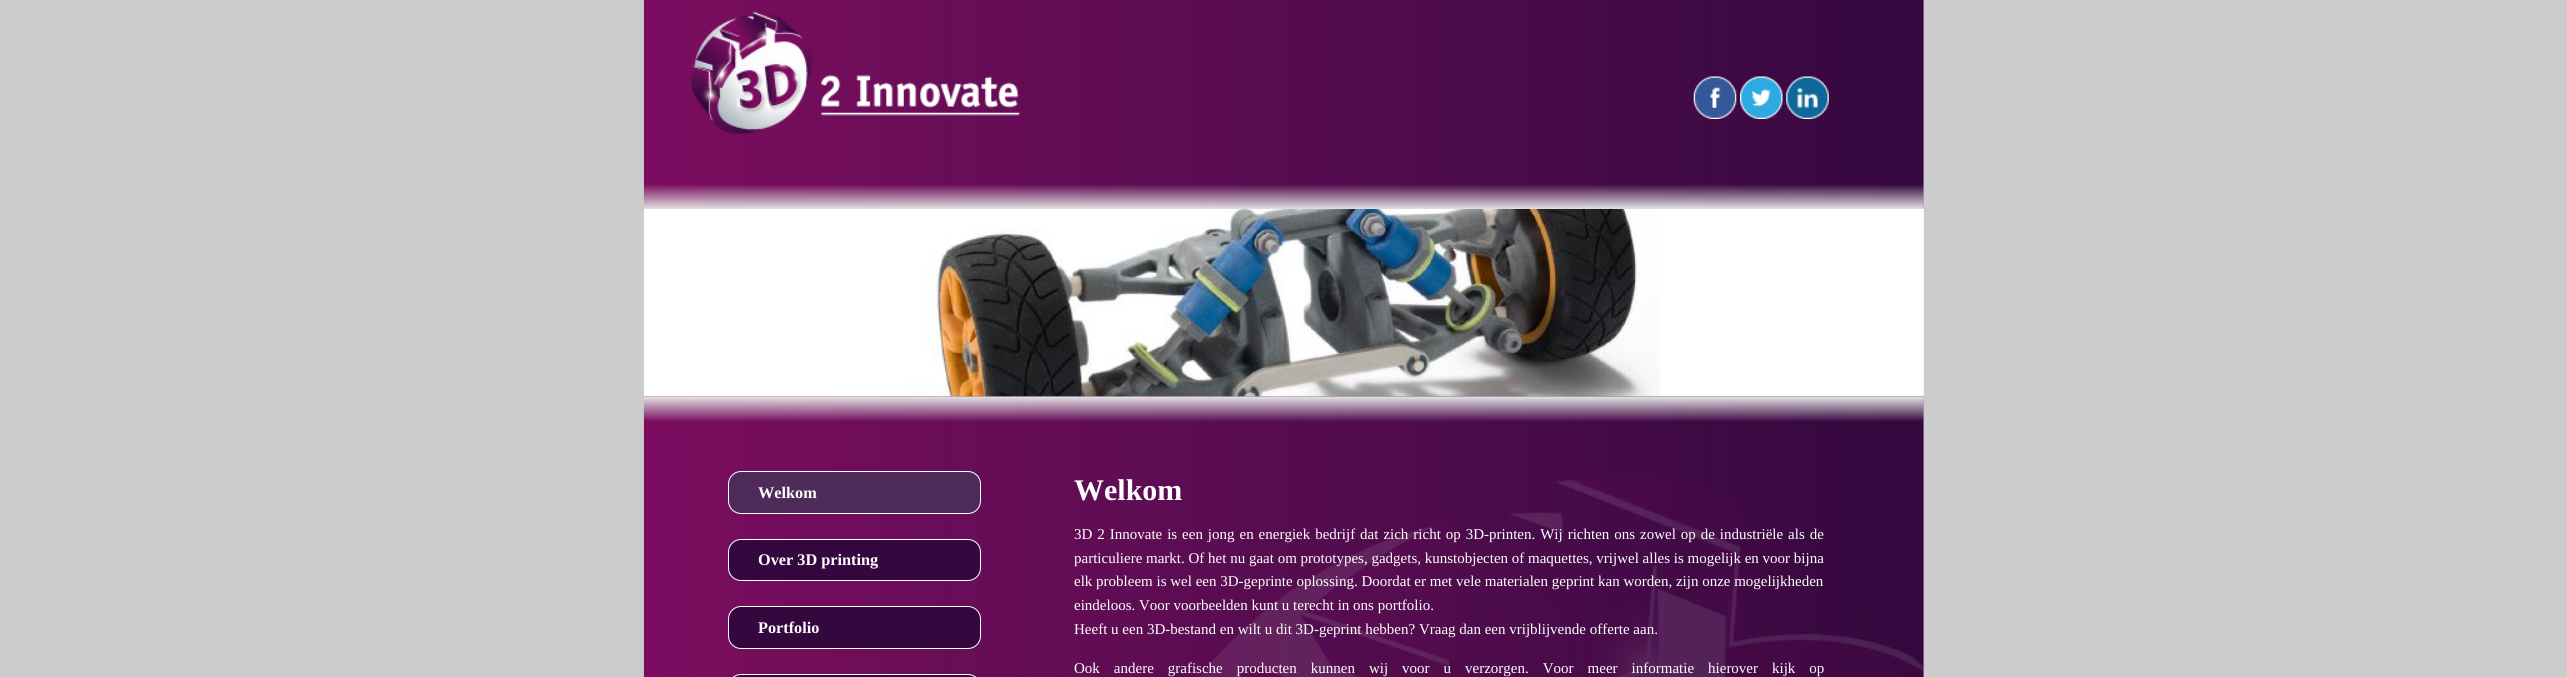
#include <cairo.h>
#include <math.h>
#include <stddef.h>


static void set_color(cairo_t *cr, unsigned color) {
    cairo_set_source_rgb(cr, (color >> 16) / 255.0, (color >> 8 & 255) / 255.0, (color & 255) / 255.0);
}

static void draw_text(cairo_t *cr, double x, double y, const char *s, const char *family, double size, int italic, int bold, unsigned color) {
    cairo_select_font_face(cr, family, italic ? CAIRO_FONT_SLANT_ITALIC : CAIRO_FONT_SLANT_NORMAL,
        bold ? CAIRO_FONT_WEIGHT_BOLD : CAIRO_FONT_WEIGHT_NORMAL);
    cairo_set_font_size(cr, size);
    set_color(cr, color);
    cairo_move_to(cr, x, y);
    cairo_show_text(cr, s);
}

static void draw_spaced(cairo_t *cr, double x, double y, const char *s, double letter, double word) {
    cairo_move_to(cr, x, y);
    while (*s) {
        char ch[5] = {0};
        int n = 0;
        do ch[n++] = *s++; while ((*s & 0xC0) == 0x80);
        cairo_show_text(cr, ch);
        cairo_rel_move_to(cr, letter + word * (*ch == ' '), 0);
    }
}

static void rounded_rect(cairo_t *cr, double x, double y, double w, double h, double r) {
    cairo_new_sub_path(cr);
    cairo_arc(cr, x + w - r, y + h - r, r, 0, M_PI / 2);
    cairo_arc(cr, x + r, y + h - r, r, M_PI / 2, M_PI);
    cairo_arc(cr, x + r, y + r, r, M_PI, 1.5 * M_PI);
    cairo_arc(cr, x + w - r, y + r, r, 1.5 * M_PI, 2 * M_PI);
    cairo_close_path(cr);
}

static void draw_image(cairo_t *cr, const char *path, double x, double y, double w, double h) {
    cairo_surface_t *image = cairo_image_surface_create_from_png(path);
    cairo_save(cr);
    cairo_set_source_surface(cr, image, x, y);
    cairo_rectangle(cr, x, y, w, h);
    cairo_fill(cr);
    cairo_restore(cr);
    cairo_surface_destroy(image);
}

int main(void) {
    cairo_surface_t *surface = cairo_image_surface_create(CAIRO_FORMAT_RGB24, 2567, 677);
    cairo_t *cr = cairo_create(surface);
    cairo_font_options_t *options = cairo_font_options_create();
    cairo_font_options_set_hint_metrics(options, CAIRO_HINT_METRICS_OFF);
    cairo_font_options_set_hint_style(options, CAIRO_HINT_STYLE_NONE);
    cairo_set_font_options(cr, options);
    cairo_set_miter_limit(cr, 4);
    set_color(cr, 0xCCCCCC);
    cairo_paint(cr);
    draw_image(cr, "assets/img3.png", 643, 0, 1281, 209);
    draw_image(cr, "assets/img1.png", 643, 185, 1281, 24);
    draw_image(cr, "assets/img8.png", 644, 209, 1280, 188);
    draw_image(cr, "assets/img9.png", 644, 209, 1280, 188);
    draw_image(cr, "assets/img10.png", 643, 396, 1281, 281);
    draw_image(cr, "assets/img2.png", 643, 396, 1281, 25);
    draw_image(cr, "assets/img4.png", 691, 11, 330, 124);
    draw_image(cr, "assets/img5.png", 1693, 76, 44, 43);
    draw_image(cr, "assets/img6.png", 1740, 76, 43, 43);
    draw_image(cr, "assets/img7.png", 1786, 76, 43, 43);
    set_color(cr, 0x4F2B5B);
    rounded_rect(cr, 728.5, 471.5, 252, 42, 12.5);
    cairo_fill_preserve(cr);
    set_color(cr, 0xFFFFFF);
    cairo_set_line_width(cr, 1);
    cairo_stroke(cr);
    draw_text(cr, 758, 498, "Welkom", "Liberation Serif", 16.25, 0, 1, 0xFFFFFF);
    set_color(cr, 0x35073F);
    rounded_rect(cr, 728.5, 539.5, 252, 41, 12.5);
    cairo_fill_preserve(cr);
    set_color(cr, 0xFFFFFF);
    cairo_stroke(cr);
    draw_text(cr, 758, 565, "Over 3D printing", "Liberation Serif", 16.25, 0, 1, 0xFFFFFF);
    set_color(cr, 0x35073F);
    rounded_rect(cr, 728.5, 606.5, 252, 42, 12.5);
    cairo_fill_preserve(cr);
    set_color(cr, 0xFFFFFF);
    cairo_stroke(cr);
    draw_text(cr, 758, 633, "Portfolio", "Liberation Serif", 16.25, 0, 1, 0xFFFFFF);
    set_color(cr, 0x35073F);
    rounded_rect(cr, 728.5, 674.5, 252, 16, 12.5);
    cairo_fill_preserve(cr);
    set_color(cr, 0xFFFFFF);
    cairo_stroke(cr);
    draw_image(cr, "assets/img11.png", 1199, 475, 725, 202);
    draw_text(cr, 1074, 500, "Welkom", "Liberation Serif", 30, 0, 1, 0xFFFFFF);
    cairo_select_font_face(cr, "Liberation Serif", CAIRO_FONT_SLANT_NORMAL, CAIRO_FONT_WEIGHT_NORMAL);
    cairo_set_font_size(cr, 15);
    draw_spaced(cr, 1074, 539, "3D 2 Innovate is een jong en energiek bedrijf dat zich richt op 3D-printen. Wij richten ons zowel op de industriële als de", 0, 1.2);
    draw_text(cr, 1074, 563, "particuliere markt. Of het nu gaat om prototypes, gadgets, kunstobjecten of maquettes, vrijwel alles is mogelijk en voor bijna", "Liberation Serif", 15, 0, 0, 0xFFFFFF);
    draw_text(cr, 1074, 586, "elk probleem is wel een 3D-geprinte oplossing. Doordat er met vele materialen geprint kan worden, zijn onze mogelijkheden", "Liberation Serif", 15, 0, 0, 0xFFFFFF);
    draw_text(cr, 1074, 610, "eindeloos. Voor voorbeelden kunt u terecht in ons portfolio.", "Liberation Serif", 15, 0, 0, 0xFFFFFF);
    draw_text(cr, 1074, 634, "Heeft u een 3D-bestand en wilt u dit 3D-geprint hebben? Vraag dan een vrijblijvende offerte aan.", "Liberation Serif", 15, 0, 0, 0xFFFFFF);
    draw_spaced(cr, 1074, 673, "Ook andere grafische producten kunnen wij voor u verzorgen. Voor meer informatie hierover kijk op", 0, 10.25);
    cairo_surface_write_to_png(surface, "output.png");
    cairo_font_options_destroy(options);
    cairo_destroy(cr);
    cairo_surface_destroy(surface);
    return 0;
}
